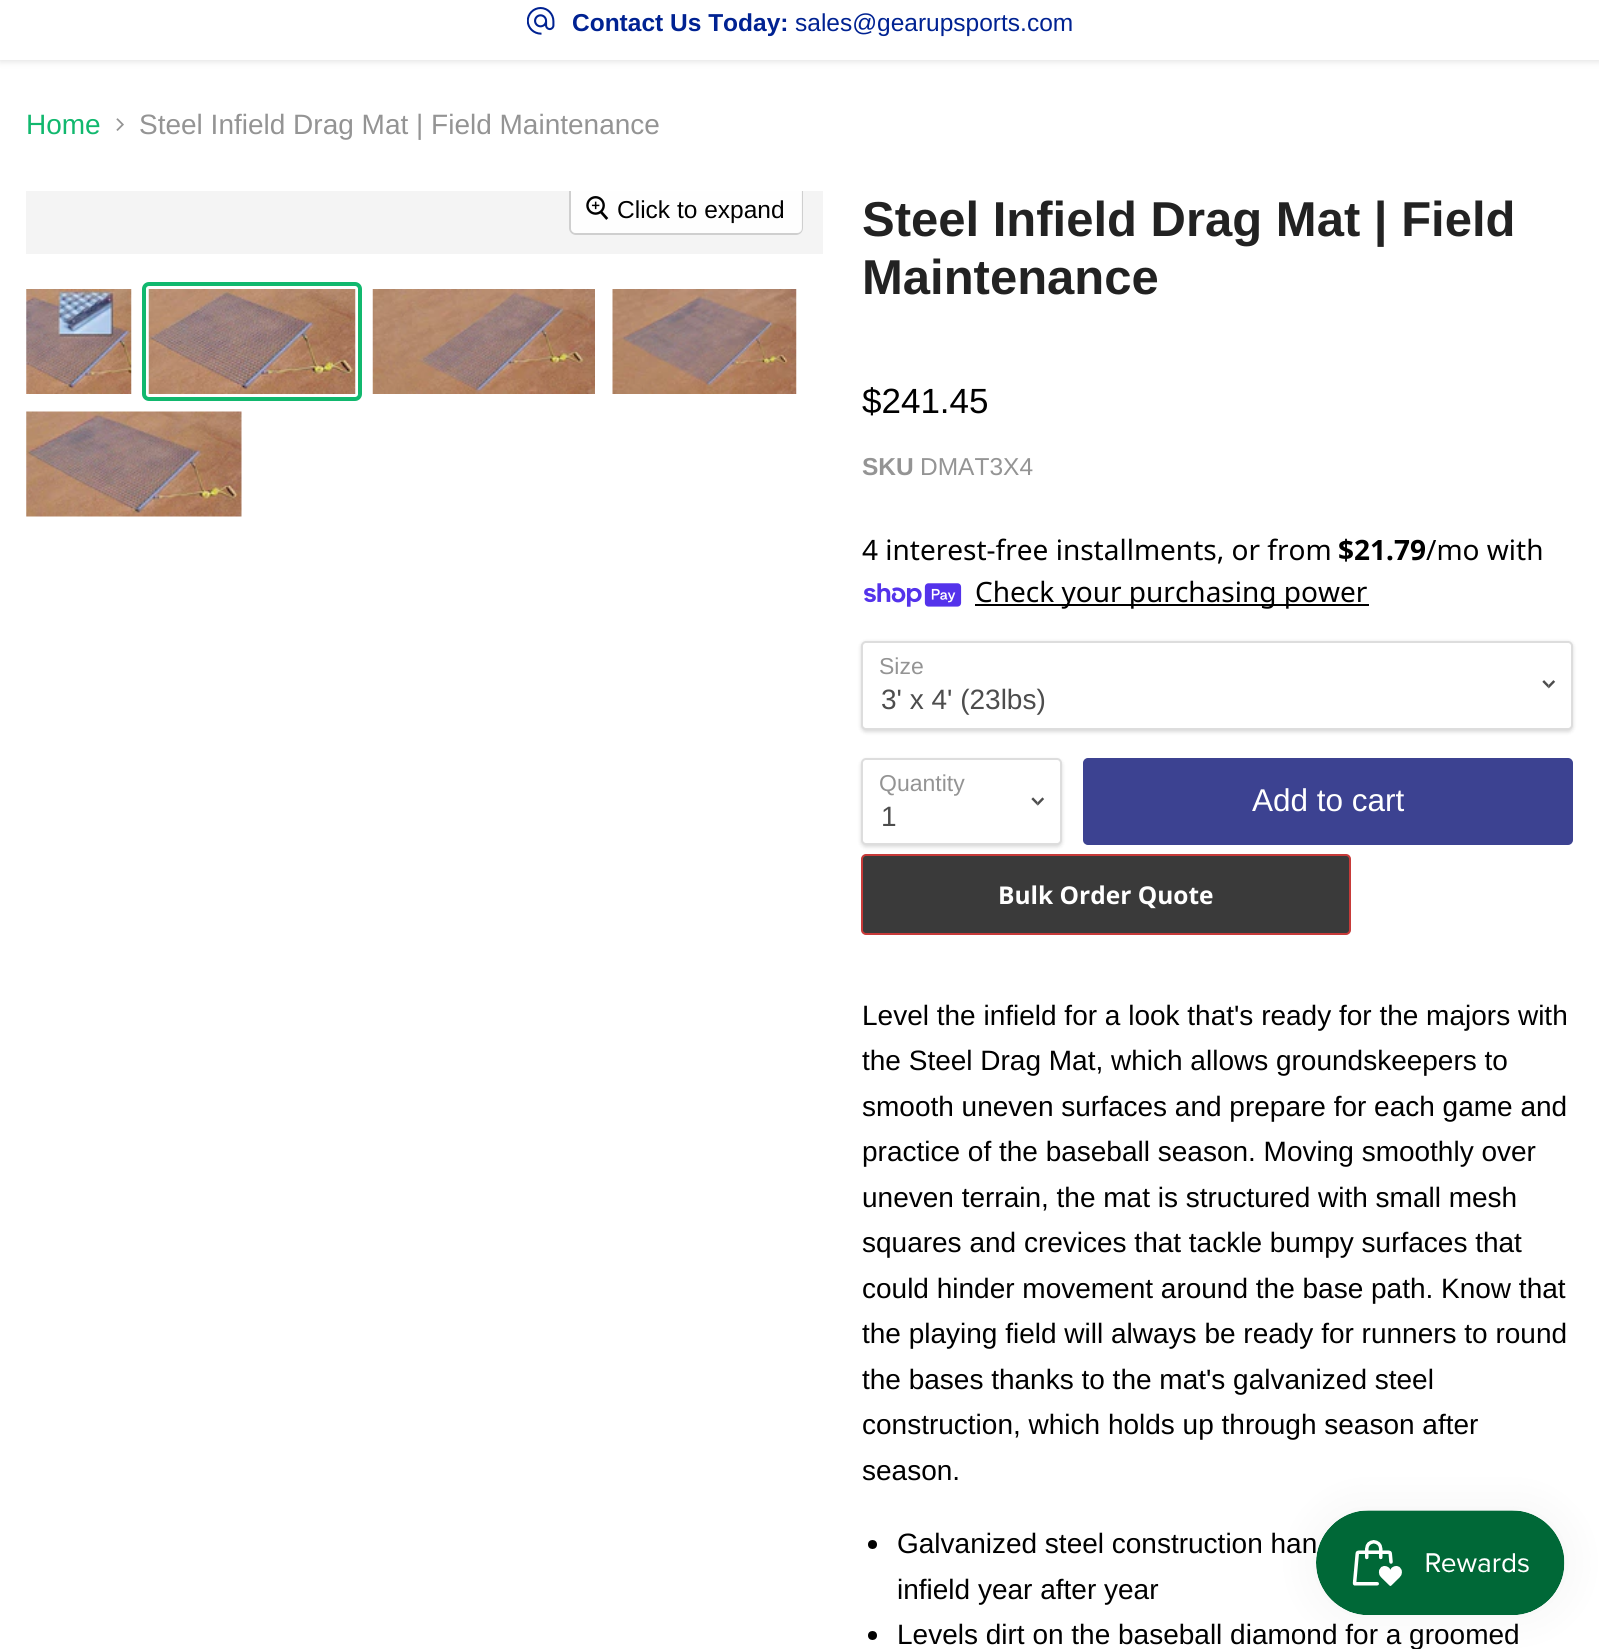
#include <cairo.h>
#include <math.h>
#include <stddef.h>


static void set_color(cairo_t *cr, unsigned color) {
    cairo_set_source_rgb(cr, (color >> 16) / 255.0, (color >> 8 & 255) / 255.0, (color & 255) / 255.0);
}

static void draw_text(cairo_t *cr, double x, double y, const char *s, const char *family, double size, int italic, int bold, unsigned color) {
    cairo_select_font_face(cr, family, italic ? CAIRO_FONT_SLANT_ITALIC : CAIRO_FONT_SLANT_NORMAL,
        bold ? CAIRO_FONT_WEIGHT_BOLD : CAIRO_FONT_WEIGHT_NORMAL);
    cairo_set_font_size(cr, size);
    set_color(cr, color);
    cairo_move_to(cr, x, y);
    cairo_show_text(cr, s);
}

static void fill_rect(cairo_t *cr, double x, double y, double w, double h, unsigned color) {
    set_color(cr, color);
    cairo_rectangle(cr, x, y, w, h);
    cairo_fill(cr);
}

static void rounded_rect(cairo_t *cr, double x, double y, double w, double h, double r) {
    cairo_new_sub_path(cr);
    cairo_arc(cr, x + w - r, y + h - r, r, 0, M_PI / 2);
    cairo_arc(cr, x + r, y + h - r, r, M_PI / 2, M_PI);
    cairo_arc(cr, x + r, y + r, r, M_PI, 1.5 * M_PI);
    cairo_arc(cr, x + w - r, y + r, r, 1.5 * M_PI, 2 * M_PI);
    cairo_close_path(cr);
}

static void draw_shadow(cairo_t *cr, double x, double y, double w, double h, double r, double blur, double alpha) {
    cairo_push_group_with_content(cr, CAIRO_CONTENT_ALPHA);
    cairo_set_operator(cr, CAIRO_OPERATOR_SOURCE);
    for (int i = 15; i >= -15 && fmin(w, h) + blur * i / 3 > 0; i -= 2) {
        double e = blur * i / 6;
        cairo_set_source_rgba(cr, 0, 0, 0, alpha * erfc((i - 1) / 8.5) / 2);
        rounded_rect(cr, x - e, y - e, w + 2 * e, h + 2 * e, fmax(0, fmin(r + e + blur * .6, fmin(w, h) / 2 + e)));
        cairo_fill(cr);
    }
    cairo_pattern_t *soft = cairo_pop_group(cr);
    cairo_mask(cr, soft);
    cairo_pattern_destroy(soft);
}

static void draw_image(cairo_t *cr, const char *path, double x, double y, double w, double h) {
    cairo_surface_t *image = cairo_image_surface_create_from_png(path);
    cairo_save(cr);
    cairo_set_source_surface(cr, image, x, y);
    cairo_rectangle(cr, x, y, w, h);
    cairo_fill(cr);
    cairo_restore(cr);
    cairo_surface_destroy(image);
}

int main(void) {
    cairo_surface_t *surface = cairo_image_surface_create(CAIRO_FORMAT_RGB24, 1599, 1649);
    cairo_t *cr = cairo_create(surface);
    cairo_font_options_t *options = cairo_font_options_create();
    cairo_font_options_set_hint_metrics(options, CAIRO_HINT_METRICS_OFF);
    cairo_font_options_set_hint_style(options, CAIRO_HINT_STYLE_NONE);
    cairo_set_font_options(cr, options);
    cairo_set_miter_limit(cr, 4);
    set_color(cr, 0xFFFFFF);
    cairo_paint(cr);
    set_color(cr, 0x7F7F7F);
    draw_shadow(cr, 0, -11, 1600, 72, 0, 3.5, 0.25);
    fill_rect(cr, 0, 0, 1599, 60, 0xFFFFFF);
    draw_image(cr, "assets/img1.png", 527, 7, 28, 28);
    draw_text(cr, 572, 31, "Contact Us Today:", "Liberation Sans", 24.5, 0, 1, 0x002292);
    draw_text(cr, 795, 31, "sales@gearupsports.com", "Liberation Sans", 24.5, 0, 0, 0x002292);
    draw_text(cr, 26, 134, "Home", "Liberation Sans", 28, 0, 0, 0x11B86E);
    draw_image(cr, "assets/img2.png", 116, 118, 8, 13);
    draw_text(cr, 139, 134, "Steel Infield Drag Mat | Field Maintenance", "Liberation Sans", 28, 0, 0, 0x949494);
    fill_rect(cr, 26, 191, 797, 63, 0xF4F4F4);
    cairo_save(cr);
    cairo_rectangle(cr, 26, 191, 797, 63);
    cairo_clip(cr);
    rounded_rect(cr, 570, 183, 232, 51, 6);
    set_color(cr, 0xCFCFCF);
    cairo_stroke(cr);
    cairo_restore(cr);
    cairo_set_source_rgba(cr, 1, 1, 1, 0.9);
    cairo_new_path(cr);
    cairo_move_to(cr, 571, 191);
    cairo_line_to(cr, 802, 191);
    cairo_line_to(cr, 802, 228);
    cairo_curve_to(cr, 802, 231, 800, 233, 797, 233);
    cairo_line_to(cr, 576, 233);
    cairo_curve_to(cr, 573, 233, 571, 231, 571, 228);
    cairo_close_path(cr);
    cairo_fill(cr);
    draw_image(cr, "assets/img3.png", 586, 196, 23, 24);
    draw_text(cr, 617, 218, "Click to expand", "Liberation Sans", 24.5, 0, 0, 0x000000);
    draw_image(cr, "assets/img4.png", 26, 289, 106, 105);
    rounded_rect(cr, 144, 284, 216, 115, 5);
    set_color(cr, 0x11B86E);
    cairo_set_line_width(cr, 4);
    cairo_stroke(cr);
    draw_image(cr, "assets/img5.png", 148, 289, 208, 105);
    draw_image(cr, "assets/img6.png", 372, 289, 223, 105);
    draw_image(cr, "assets/img7.png", 612, 289, 185, 105);
    draw_image(cr, "assets/img8.png", 26, 411, 216, 106);
    draw_text(cr, 862, 236, "Steel Infield Drag Mat | Field", "Liberation Sans", 49, 0, 1, 0x222222);
    draw_text(cr, 862, 294, "Maintenance", "Liberation Sans", 49, 0, 1, 0x222222);
    draw_text(cr, 862, 413, "$241.45", "Liberation Sans", 35, 0, 0, 0x000000);
    draw_text(cr, 862, 475, "SKU", "Liberation Sans", 24.5, 0, 1, 0x949494);
    draw_text(cr, 920, 475, "DMAT3X4", "Liberation Sans", 24.5, 0, 0, 0x949494);
    draw_text(cr, 862, 560, "4 interest-free installments, or from", "Noto Sans", 28, 0, 0, 0x000000);
    draw_text(cr, 1338, 560, "$21.79", "Noto Sans", 28, 0, 1, 0x000000);
    draw_text(cr, 1426, 560, "/mo with", "Noto Sans", 28, 0, 0, 0x000000);
    draw_image(cr, "assets/img9.png", 864, 583, 98, 24);
    fill_rect(cr, 975, 604, 394, 2, 0x000000);
    draw_text(cr, 975, 602, "Check your purchasing power", "Noto Sans", 28, 0, 0, 0x000000);
    set_color(cr, 0x000000);
    draw_shadow(cr, 861, 642, 712, 90, 5, 2, 0.15);
    set_color(cr, 0xFFFFFF);
    rounded_rect(cr, 862, 642, 710, 87, 4);
    cairo_fill_preserve(cr);
    set_color(cr, 0xDDDDDD);
    cairo_set_line_width(cr, 2);
    cairo_stroke(cr);
    draw_text(cr, 879, 674, "Size", "Liberation Sans", 23, 0, 0, 0x949494);
    draw_image(cr, "assets/img10.png", 1542, 680, 14, 9);
    draw_text(cr, 881, 709, "3' x 4' (23lbs)", "Liberation Sans", 28, 0, 0, 0x4D4D4D);
    set_color(cr, 0x000000);
    draw_shadow(cr, 861, 760, 201, 87, 5, 2, 0.15);
    set_color(cr, 0xFFFFFF);
    rounded_rect(cr, 862, 759, 199, 85, 4);
    cairo_fill_preserve(cr);
    set_color(cr, 0xDDDDDD);
    cairo_stroke(cr);
    draw_text(cr, 879, 791, "Quantity", "Liberation Sans", 23, 0, 0, 0x949494);
    draw_image(cr, "assets/img11.png", 1031, 797, 14, 9);
    draw_text(cr, 881, 826, "1", "Liberation Sans", 28, 0, 0, 0x4D4D4D);
    set_color(cr, 0x3C4291);
    rounded_rect(cr, 1084, 759, 488, 85, 4);
    cairo_fill_preserve(cr);
    cairo_stroke(cr);
    draw_text(cr, 1252, 811, "Add to cart", "Liberation Sans", 31.5, 0, 0, 0xFFFFFF);
    set_color(cr, 0x3A3A3A);
    rounded_rect(cr, 862, 855, 488, 79, 4);
    cairo_fill_preserve(cr);
    set_color(cr, 0xC73A39);
    cairo_stroke(cr);
    draw_text(cr, 998, 904, "Bulk Order Quote", "Open Sans", 24.5, 0, 1, 0xFFFFFF);
    draw_text(cr, 862, 1025, "Level the infield for a look that's ready for the majors with", "Liberation Sans", 28, 0, 0, 0x000000);
    draw_text(cr, 862, 1070, "the Steel Drag Mat, which allows groundskeepers to", "Liberation Sans", 28, 0, 0, 0x000000);
    draw_text(cr, 862, 1116, "smooth uneven surfaces and prepare for each game and", "Liberation Sans", 28, 0, 0, 0x000000);
    draw_text(cr, 862, 1161, "practice of the baseball season. Moving smoothly over", "Liberation Sans", 28, 0, 0, 0x000000);
    draw_text(cr, 862, 1207, "uneven terrain, the mat is structured with small mesh", "Liberation Sans", 28, 0, 0, 0x000000);
    draw_text(cr, 862, 1252, "squares and crevices that tackle bumpy surfaces that", "Liberation Sans", 28, 0, 0, 0x000000);
    draw_text(cr, 862, 1298, "could hinder movement around the base path. Know that", "Liberation Sans", 28, 0, 0, 0x000000);
    draw_text(cr, 862, 1343, "the playing field will always be ready for runners to round", "Liberation Sans", 28, 0, 0, 0x000000);
    draw_text(cr, 862, 1389, "the bases thanks to the mat's galvanized steel", "Liberation Sans", 28, 0, 0, 0x000000);
    draw_text(cr, 862, 1434, "construction, which holds up through season after", "Liberation Sans", 28, 0, 0, 0x000000);
    draw_text(cr, 862, 1480, "season.", "Liberation Sans", 28, 0, 0, 0x000000);
    cairo_new_path(cr);
    cairo_arc(cr, 872.5, 1544.5, 4.5, 0, 2 * M_PI);
    cairo_fill(cr);
    draw_text(cr, 897, 1553, "Galvanized steel construction han", "Liberation Sans", 28, 0, 0, 0x000000);
    draw_text(cr, 897, 1599, "infield year after year", "Liberation Sans", 28, 0, 0, 0x000000);
    cairo_new_path(cr);
    cairo_arc(cr, 872.5, 1635.5, 4.5, 0, 2 * M_PI);
    cairo_fill(cr);
    draw_text(cr, 897, 1644, "Levels dirt on the baseball diamond for a groomed", "Liberation Sans", 28, 0, 0, 0x000000);
    set_color(cr, 0x000000);
    draw_shadow(cr, 1316, 1510, 249, 105, 52.5, 22, 0.05);
    draw_image(cr, "assets/img12.png", 1316, 1510, 249, 105);
    cairo_surface_write_to_png(surface, "output.png");
    cairo_font_options_destroy(options);
    cairo_destroy(cr);
    cairo_surface_destroy(surface);
    return 0;
}
